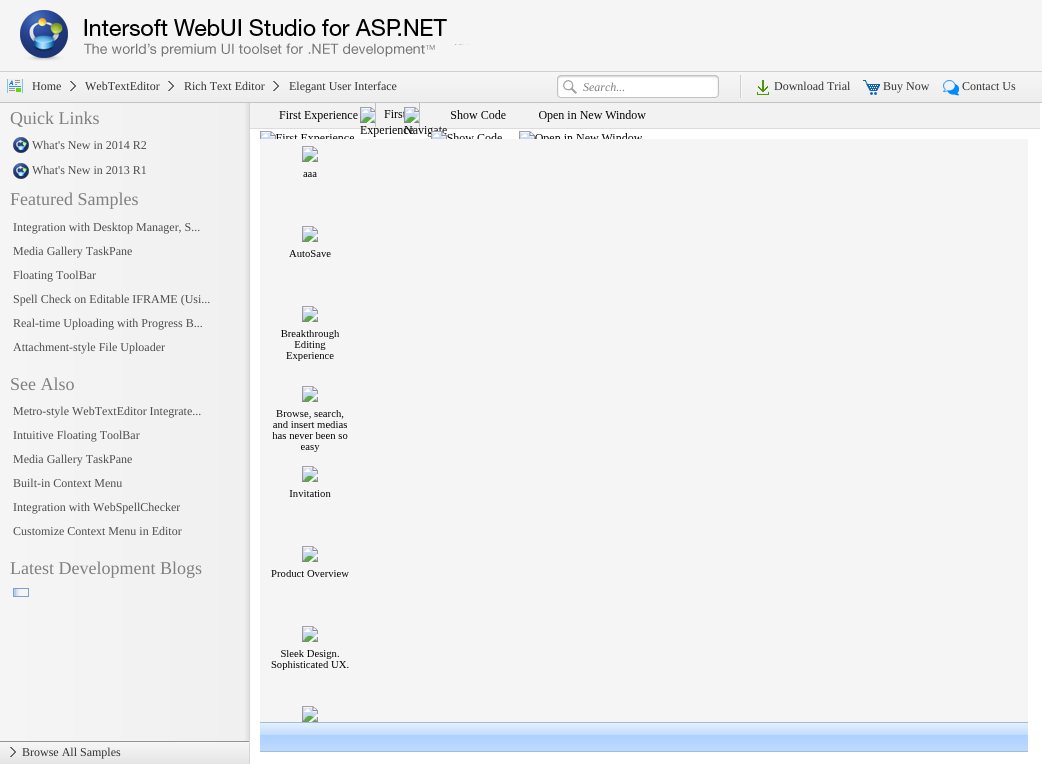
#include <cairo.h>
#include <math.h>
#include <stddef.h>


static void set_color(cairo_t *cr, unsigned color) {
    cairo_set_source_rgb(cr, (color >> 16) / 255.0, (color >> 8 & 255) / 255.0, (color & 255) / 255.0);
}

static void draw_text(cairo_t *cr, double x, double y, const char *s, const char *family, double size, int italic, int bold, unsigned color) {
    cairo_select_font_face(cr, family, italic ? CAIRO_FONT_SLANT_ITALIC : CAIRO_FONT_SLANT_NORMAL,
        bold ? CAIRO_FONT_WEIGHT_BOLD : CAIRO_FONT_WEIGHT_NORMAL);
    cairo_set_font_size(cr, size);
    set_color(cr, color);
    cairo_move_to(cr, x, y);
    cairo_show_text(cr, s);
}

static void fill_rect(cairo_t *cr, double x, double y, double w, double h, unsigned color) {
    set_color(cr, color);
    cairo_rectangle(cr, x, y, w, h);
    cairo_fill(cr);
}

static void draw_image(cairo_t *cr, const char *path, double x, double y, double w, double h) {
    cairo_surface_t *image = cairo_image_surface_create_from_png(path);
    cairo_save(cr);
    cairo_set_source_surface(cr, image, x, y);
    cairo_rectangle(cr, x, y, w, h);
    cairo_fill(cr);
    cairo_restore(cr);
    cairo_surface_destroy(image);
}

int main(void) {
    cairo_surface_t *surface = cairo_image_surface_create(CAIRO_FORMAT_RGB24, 1042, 764);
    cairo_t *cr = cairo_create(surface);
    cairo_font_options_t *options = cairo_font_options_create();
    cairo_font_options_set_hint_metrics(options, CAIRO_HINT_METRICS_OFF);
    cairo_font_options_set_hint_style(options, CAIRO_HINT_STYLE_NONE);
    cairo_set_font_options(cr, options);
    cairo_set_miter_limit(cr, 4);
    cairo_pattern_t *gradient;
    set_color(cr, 0xFFFFFF);
    cairo_paint(cr);
    gradient = cairo_pattern_create_linear(521, 0, 521, 103);
    cairo_pattern_add_color_stop_rgba(gradient, 0, 0.961, 0.961, 0.961, 1);
    cairo_pattern_add_color_stop_rgba(gradient, 0.98, 0.961, 0.961, 0.961, 1);
    cairo_pattern_add_color_stop_rgba(gradient, 1, 0.929, 0.929, 0.929, 1);
    cairo_set_source(cr, gradient);
    cairo_pattern_destroy(gradient);
    cairo_rectangle(cr, 0, 0, 1042, 71);
    cairo_fill(cr);
    draw_image(cr, "assets/img1.png", 20, 10, 448, 51);
    gradient = cairo_pattern_create_linear(521, 72, 521, 102);
    cairo_pattern_add_color_stop_rgba(gradient, 0, 0.965, 0.965, 0.965, 1);
    cairo_pattern_add_color_stop_rgba(gradient, 1, 0.929, 0.929, 0.929, 1);
    cairo_set_source(cr, gradient);
    cairo_pattern_destroy(gradient);
    cairo_rectangle(cr, 0, 72, 1042, 30);
    cairo_fill(cr);
    fill_rect(cr, 0, 71, 1042, 1, 0xD0D0D0);
    fill_rect(cr, 0, 102, 1042, 1, 0xC4C4C4);
    draw_image(cr, "assets/img2.png", 7, 79, 16, 14);
    draw_text(cr, 32, 90, "Home", "Liberation Serif", 12, 0, 0, 0x333333);
    draw_image(cr, "assets/img3.png", 70, 81, 6, 10);
    draw_text(cr, 85, 90, "WebTextEditor", "Liberation Serif", 12, 0, 0, 0x333333);
    draw_image(cr, "assets/img3.png", 168, 81, 6, 10);
    draw_text(cr, 184, 90, "Rich Text Editor", "Liberation Serif", 12, 0, 0, 0x333333);
    draw_image(cr, "assets/img3.png", 273, 81, 6, 10);
    draw_text(cr, 289, 90, "Elegant User Interface", "Liberation Serif", 12, 0, 0, 0x333333);
    draw_image(cr, "assets/img4.png", 557, 75, 162, 23);
    draw_text(cr, 583, 91, "Search...", "Liberation Serif", 12, 1, 0, 0x808080);
    fill_rect(cr, 741, 75, 1, 23, 0xF7F7F7);
    fill_rect(cr, 740, 75, 1, 23, 0xD0D0D0);
    draw_image(cr, "assets/img5.png", 757, 80, 12, 15);
    draw_text(cr, 774, 90, "Download Trial", "Liberation Serif", 12, 0, 0, 0x333333);
    draw_image(cr, "assets/img6.png", 863, 80, 17, 15);
    draw_text(cr, 883, 90, "Buy Now", "Liberation Serif", 12, 0, 0, 0x333333);
    draw_image(cr, "assets/img7.png", 943, 80, 16, 16);
    draw_text(cr, 962, 90, "Contact Us", "Liberation Serif", 12, 0, 0, 0x333333);
    gradient = cairo_pattern_create_linear(0, 434, 249, 434);
    cairo_pattern_add_color_stop_rgba(gradient, 0, 0.961, 0.961, 0.961, 1);
    cairo_pattern_add_color_stop_rgba(gradient, 0.98, 0.941, 0.941, 0.941, 1);
    cairo_pattern_add_color_stop_rgba(gradient, 1, 0.875, 0.875, 0.875, 1);
    cairo_set_source(cr, gradient);
    cairo_pattern_destroy(gradient);
    cairo_rectangle(cr, 0, 103, 249, 638);
    cairo_fill(cr);
    fill_rect(cr, 249, 103, 1, 661, 0xD5D5D5);
    draw_text(cr, 10, 124, "Quick Links", "Liberation Serif", 18, 0, 0, 0x808080);
    draw_image(cr, "assets/img8.png", 13, 137, 16, 16);
    draw_text(cr, 32, 149, "What's New in 2014 R2", "Liberation Serif", 12, 0, 0, 0x4D4D4D);
    draw_image(cr, "assets/img8.png", 13, 163, 16, 16);
    draw_text(cr, 32, 174, "What's New in 2013 R1", "Liberation Serif", 12, 0, 0, 0x4D4D4D);
    draw_text(cr, 10, 205, "Featured Samples", "Liberation Serif", 18, 0, 0, 0x808080);
    draw_text(cr, 13, 231, "Integration with Desktop Manager, S...", "Liberation Serif", 12, 0, 0, 0x4D4D4D);
    draw_text(cr, 13, 255, "Media Gallery TaskPane", "Liberation Serif", 12, 0, 0, 0x4D4D4D);
    draw_text(cr, 13, 279, "Floating ToolBar", "Liberation Serif", 12, 0, 0, 0x4D4D4D);
    draw_text(cr, 13, 303, "Spell Check on Editable IFRAME (Usi...", "Liberation Serif", 12, 0, 0, 0x4D4D4D);
    draw_text(cr, 13, 327, "Real-time Uploading with Progress B...", "Liberation Serif", 12, 0, 0, 0x4D4D4D);
    draw_text(cr, 13, 351, "Attachment-style File Uploader", "Liberation Serif", 12, 0, 0, 0x4D4D4D);
    draw_text(cr, 10, 390, "See Also", "Liberation Serif", 18, 0, 0, 0x808080);
    draw_text(cr, 13, 415, "Metro-style WebTextEditor Integrate...", "Liberation Serif", 12, 0, 0, 0x4D4D4D);
    draw_text(cr, 13, 439, "Intuitive Floating ToolBar", "Liberation Serif", 12, 0, 0, 0x4D4D4D);
    draw_text(cr, 13, 463, "Media Gallery TaskPane", "Liberation Serif", 12, 0, 0, 0x4D4D4D);
    draw_text(cr, 13, 487, "Built-in Context Menu", "Liberation Serif", 12, 0, 0, 0x4D4D4D);
    draw_text(cr, 13, 511, "Integration with WebSpellChecker", "Liberation Serif", 12, 0, 0, 0x4D4D4D);
    draw_text(cr, 13, 535, "Customize Context Menu in Editor", "Liberation Serif", 12, 0, 0, 0x4D4D4D);
    draw_text(cr, 10, 574, "Latest Development Blogs", "Liberation Serif", 18, 0, 0, 0x808080);
    draw_image(cr, "assets/img9.png", 13, 588, 16, 9);
    gradient = cairo_pattern_create_linear(125, 742, 125, 764);
    cairo_pattern_add_color_stop_rgba(gradient, 0, 0.965, 0.965, 0.965, 1);
    cairo_pattern_add_color_stop_rgba(gradient, 1, 0.898, 0.898, 0.898, 1);
    cairo_set_source(cr, gradient);
    cairo_pattern_destroy(gradient);
    cairo_rectangle(cr, 0, 742, 249, 22);
    cairo_fill(cr);
    fill_rect(cr, 0, 741, 249, 1, 0x949494);
    draw_image(cr, "assets/img10.png", 10, 747, 6, 10);
    draw_text(cr, 22, 756, "Browse All Samples", "Liberation Serif", 12, 0, 0, 0x333333);
    draw_image(cr, "assets/img11.png", 250, 103, 790, 649);
    cairo_surface_write_to_png(surface, "output.png");
    cairo_font_options_destroy(options);
    cairo_destroy(cr);
    cairo_surface_destroy(surface);
    return 0;
}
